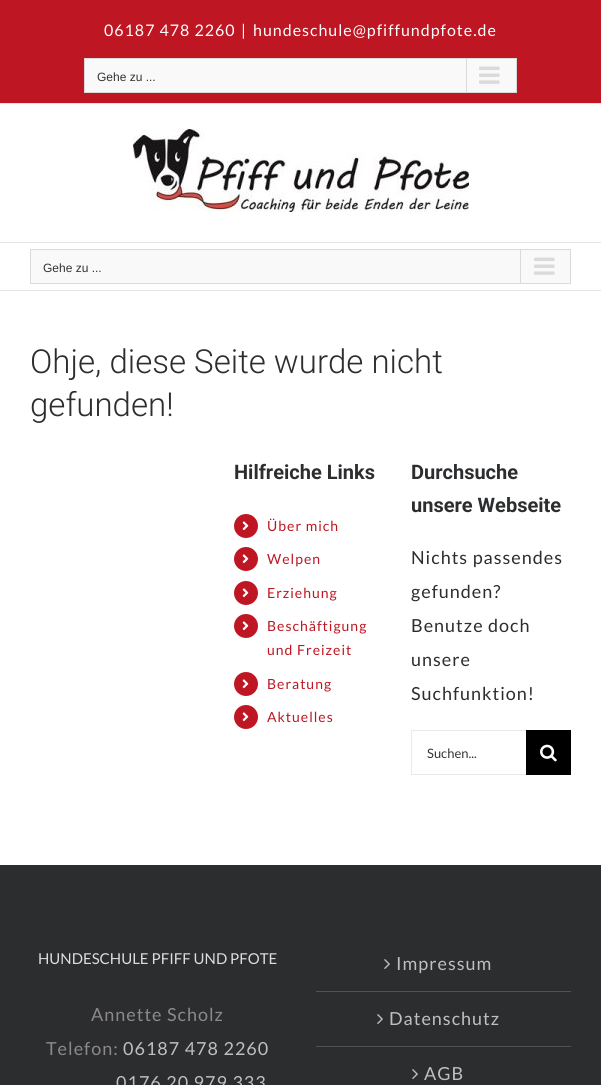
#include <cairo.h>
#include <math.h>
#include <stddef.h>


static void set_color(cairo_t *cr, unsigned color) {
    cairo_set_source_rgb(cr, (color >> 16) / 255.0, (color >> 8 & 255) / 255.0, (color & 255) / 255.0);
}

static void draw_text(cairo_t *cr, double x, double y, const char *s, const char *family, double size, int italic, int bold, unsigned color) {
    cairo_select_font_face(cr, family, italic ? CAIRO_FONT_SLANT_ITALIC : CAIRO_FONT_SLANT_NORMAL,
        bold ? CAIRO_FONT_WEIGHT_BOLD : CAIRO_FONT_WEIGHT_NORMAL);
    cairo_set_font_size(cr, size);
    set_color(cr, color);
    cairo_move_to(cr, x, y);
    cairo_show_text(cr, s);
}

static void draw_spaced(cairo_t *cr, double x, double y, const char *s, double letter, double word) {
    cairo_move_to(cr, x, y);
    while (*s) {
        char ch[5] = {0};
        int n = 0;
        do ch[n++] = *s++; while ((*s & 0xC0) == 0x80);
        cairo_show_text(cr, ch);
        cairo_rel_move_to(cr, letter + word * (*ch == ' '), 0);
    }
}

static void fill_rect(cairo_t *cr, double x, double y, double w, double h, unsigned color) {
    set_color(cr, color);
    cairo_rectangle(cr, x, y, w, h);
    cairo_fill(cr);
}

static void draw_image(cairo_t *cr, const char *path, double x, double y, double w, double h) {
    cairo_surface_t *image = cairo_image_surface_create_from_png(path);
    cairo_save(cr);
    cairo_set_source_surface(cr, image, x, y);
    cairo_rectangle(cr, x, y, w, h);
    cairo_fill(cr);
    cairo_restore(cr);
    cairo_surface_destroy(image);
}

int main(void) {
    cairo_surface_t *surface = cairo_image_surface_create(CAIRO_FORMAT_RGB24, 601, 1085);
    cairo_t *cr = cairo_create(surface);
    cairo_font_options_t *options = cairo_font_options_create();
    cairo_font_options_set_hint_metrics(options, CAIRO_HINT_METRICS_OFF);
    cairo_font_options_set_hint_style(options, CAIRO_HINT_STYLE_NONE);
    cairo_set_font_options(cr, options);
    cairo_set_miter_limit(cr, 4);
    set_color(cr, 0xFFFFFF);
    cairo_paint(cr);
    fill_rect(cr, 0, 0, 601, 103, 0xBE1622);
    fill_rect(cr, 0, 103, 601, 1, 0xE5E5E5);
    cairo_select_font_face(cr, "Lato", CAIRO_FONT_SLANT_NORMAL, CAIRO_FONT_WEIGHT_NORMAL);
    cairo_set_font_size(cr, 16);
    set_color(cr, 0xFFFFFF);
    draw_spaced(cr, 104, 36, "06187 478 2260", 1, 0);
    draw_spaced(cr, 241, 36, "|", 1, 0);
    draw_spaced(cr, 253, 36, "hundeschule@pfiffundpfote.de", 1, 0);
    set_color(cr, 0xF9F9F9);
    cairo_rectangle(cr, 84.5, 58.5, 432, 34);
    cairo_fill_preserve(cr);
    set_color(cr, 0xDADADA);
    cairo_set_line_width(cr, 1);
    cairo_stroke(cr);
    draw_text(cr, 97, 81, "Gehe zu ...", "Liberation Sans", 12, 0, 0, 0x333333);
    fill_rect(cr, 466, 59, 1, 33, 0xDADADA);
    draw_image(cr, "assets/img1.png", 479, 66, 21, 18);
    fill_rect(cr, 0, 242, 601, 1, 0xE5E5E5);
    draw_image(cr, "assets/img2.png", 133, 129, 336, 83);
    fill_rect(cr, 0, 290, 601, 1, 0xE5E5E5);
    set_color(cr, 0xF9F9F9);
    cairo_rectangle(cr, 30.5, 249.5, 540, 34);
    cairo_fill_preserve(cr);
    set_color(cr, 0xDADADA);
    cairo_stroke(cr);
    draw_text(cr, 43, 272, "Gehe zu ...", "Liberation Sans", 12, 0, 0, 0x333333);
    fill_rect(cr, 520, 250, 1, 33, 0xDADADA);
    draw_image(cr, "assets/img1.png", 534, 257, 21, 18);
    draw_text(cr, 30, 373, "Ohje, diese Seite wurde nicht", "Roboto Light", 33, 0, 0, 0x2C2D2F);
    draw_text(cr, 30, 416, "gefunden!", "Roboto Light", 33, 0, 0, 0x2C2D2F);
    draw_text(cr, 234, 479, "Hilfreiche Links", "Roboto", 20, 0, 1, 0x2C2D2F);
    set_color(cr, 0xBE1622);
    cairo_new_path(cr);
    cairo_arc(cr, 246, 526, 12, 0, 2 * M_PI);
    cairo_fill(cr);
    draw_image(cr, "assets/img3.png", 242, 521, 7, 10);
    cairo_select_font_face(cr, "Lato", CAIRO_FONT_SLANT_NORMAL, CAIRO_FONT_WEIGHT_NORMAL);
    cairo_set_font_size(cr, 14);
    draw_spaced(cr, 267, 531, "Über mich", 1, 0);
    cairo_new_path(cr);
    cairo_arc(cr, 246, 559, 12, 0, 2 * M_PI);
    cairo_fill(cr);
    draw_image(cr, "assets/img3.png", 242, 554, 7, 10);
    draw_spaced(cr, 267, 564, "Welpen", 1, 0);
    cairo_new_path(cr);
    cairo_arc(cr, 246, 593, 12, 0, 2 * M_PI);
    cairo_fill(cr);
    draw_image(cr, "assets/img3.png", 242, 588, 7, 10);
    draw_spaced(cr, 267, 598, "Erziehung", 1, 0);
    cairo_new_path(cr);
    cairo_arc(cr, 246, 626, 12, 0, 2 * M_PI);
    cairo_fill(cr);
    draw_image(cr, "assets/img3.png", 242, 621, 7, 10);
    draw_spaced(cr, 267, 631, "Beschäftigung", 1, 0);
    draw_spaced(cr, 267, 655, "und Freizeit", 1, 0);
    cairo_new_path(cr);
    cairo_arc(cr, 246, 684, 12, 0, 2 * M_PI);
    cairo_fill(cr);
    draw_image(cr, "assets/img3.png", 242, 679, 7, 10);
    draw_spaced(cr, 267, 689, "Beratung", 1, 0);
    cairo_new_path(cr);
    cairo_arc(cr, 246, 717, 12, 0, 2 * M_PI);
    cairo_fill(cr);
    draw_image(cr, "assets/img3.png", 242, 712, 7, 10);
    draw_spaced(cr, 267, 722, "Aktuelles", 1, 0);
    draw_text(cr, 411, 479, "Durchsuche", "Roboto", 20, 0, 1, 0x2C2D2F);
    draw_text(cr, 411, 512, "unsere Webseite", "Roboto", 20, 0, 1, 0x2C2D2F);
    cairo_select_font_face(cr, "Lato", CAIRO_FONT_SLANT_NORMAL, CAIRO_FONT_WEIGHT_NORMAL);
    cairo_set_font_size(cr, 18);
    draw_spaced(cr, 411, 564, "Nichts passendes", 1, 0);
    draw_spaced(cr, 411, 598, "gefunden?", 1, 0);
    draw_spaced(cr, 411, 632, "Benutze doch", 1, 0);
    draw_spaced(cr, 411, 666, "unsere", 1, 0);
    draw_spaced(cr, 411, 700, "Suchfunktion!", 1, 0);
    fill_rect(cr, 411, 730, 115, 1, 0xEAEAEA);
    fill_rect(cr, 411, 774, 115, 1, 0xEAEAEA);
    fill_rect(cr, 411, 730, 1, 45, 0xEAEAEA);
    draw_text(cr, 427, 758, "Suchen...", "Lato", 13, 0, 0, 0x333333);
    fill_rect(cr, 526, 730, 45, 45, 0x000000);
    draw_image(cr, "assets/img4.png", 540, 744, 17, 18);
    fill_rect(cr, 0, 865, 601, 220, 0x2C2D2F);
    draw_text(cr, 38, 964, "HUNDESCHULE PFIFF UND PFOTE", "Lato", 15, 0, 0, 0xDDDDDD);
    cairo_set_font_size(cr, 18);
    set_color(cr, 0x8C8989);
    draw_spaced(cr, 91, 1021, "Annette Scholz", 1, 0);
    draw_spaced(cr, 46, 1055, "Telefon:", 1, 0);
    set_color(cr, 0xBFBFBF);
    draw_spaced(cr, 123, 1055, "06187 478 2260", 1, 0);
    draw_spaced(cr, 116, 1089, "0176 20 979 333", 1, 0);
    fill_rect(cr, 316, 991, 255, 1, 0x505152);
    draw_image(cr, "assets/img5.png", 384, 959, 6, 10);
    set_color(cr, 0xBFBFBF);
    draw_spaced(cr, 396, 970, "Impressum", 1, 0);
    fill_rect(cr, 316, 1046, 255, 1, 0x505152);
    draw_image(cr, "assets/img5.png", 377, 1014, 6, 10);
    set_color(cr, 0xBFBFBF);
    draw_spaced(cr, 389, 1025, "Datenschutz", 1, 0);
    draw_image(cr, "assets/img5.png", 412, 1069, 6, 10);
    draw_spaced(cr, 424, 1080, "AGB", 1, 0);
    cairo_surface_write_to_png(surface, "output.png");
    cairo_font_options_destroy(options);
    cairo_destroy(cr);
    cairo_surface_destroy(surface);
    return 0;
}
